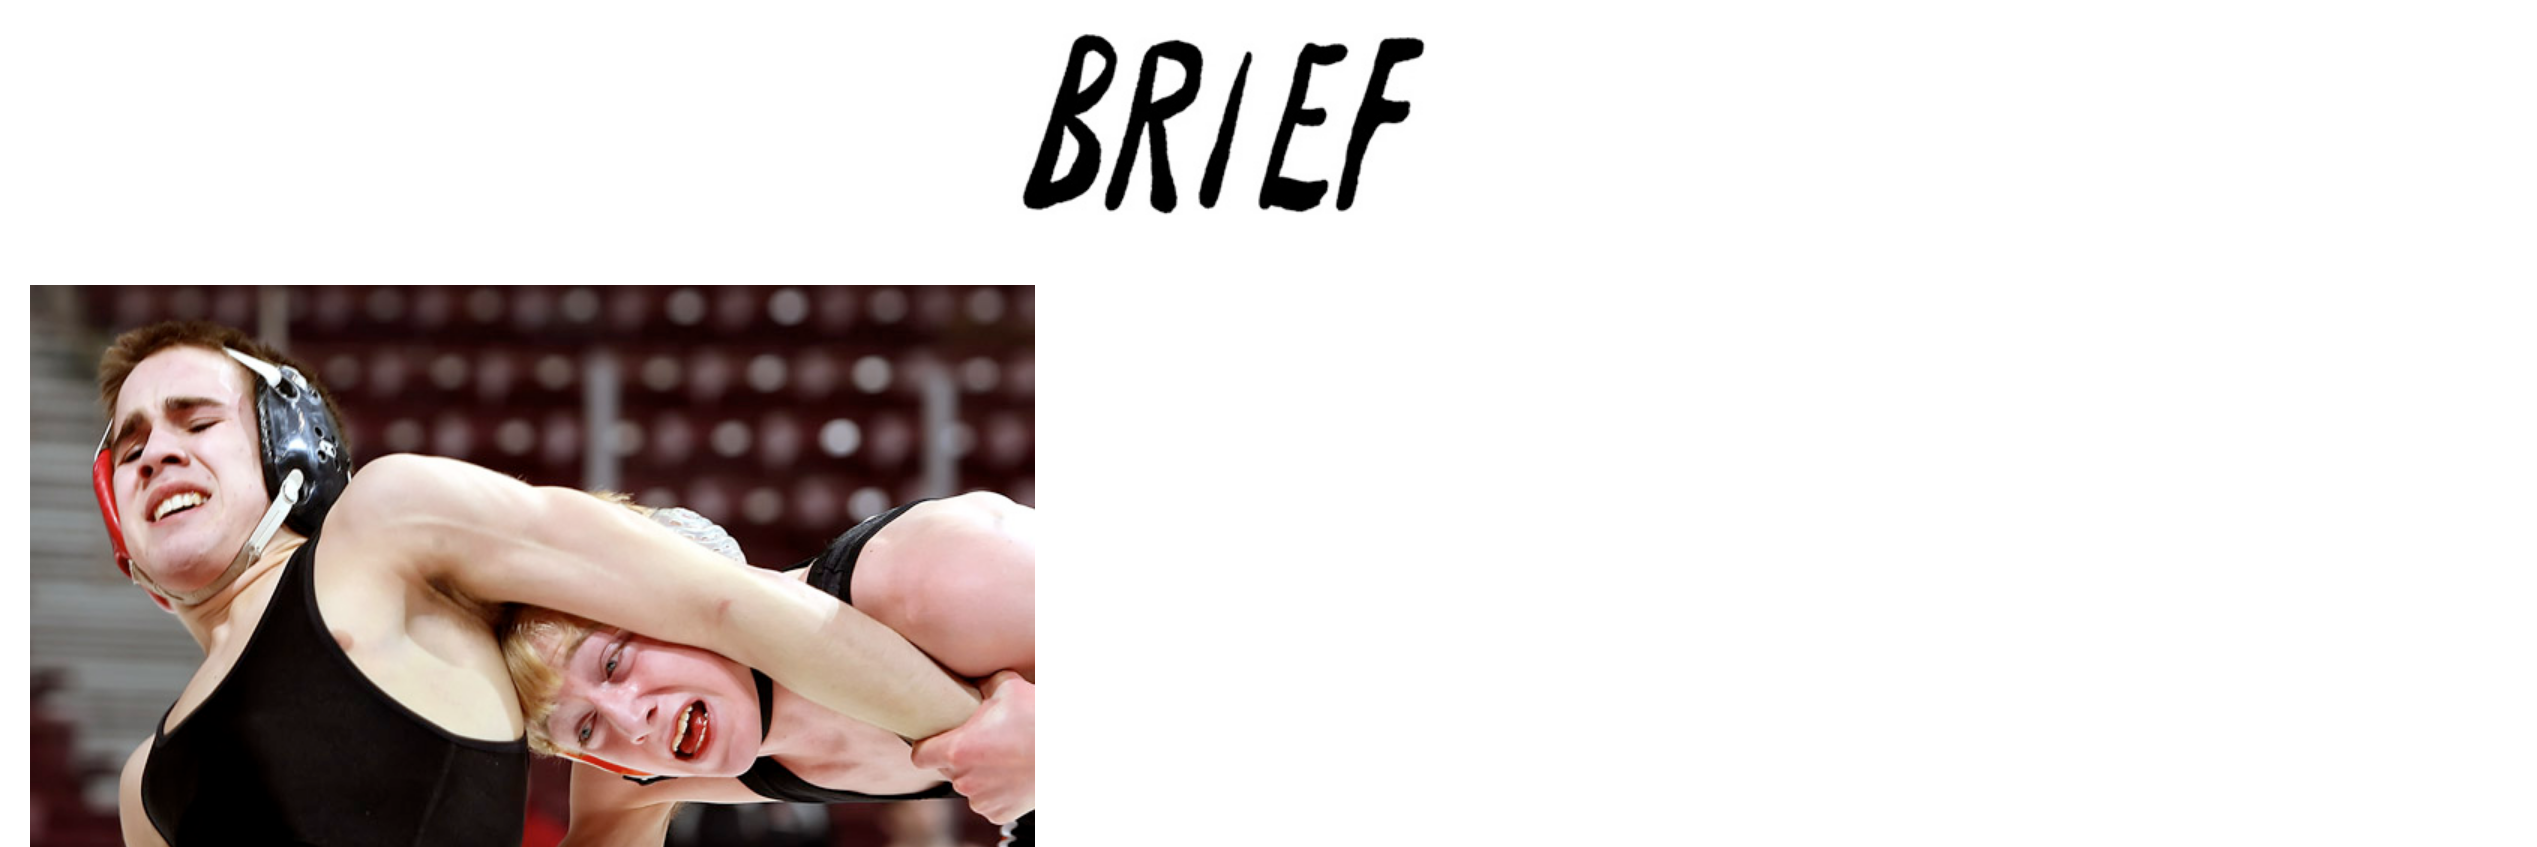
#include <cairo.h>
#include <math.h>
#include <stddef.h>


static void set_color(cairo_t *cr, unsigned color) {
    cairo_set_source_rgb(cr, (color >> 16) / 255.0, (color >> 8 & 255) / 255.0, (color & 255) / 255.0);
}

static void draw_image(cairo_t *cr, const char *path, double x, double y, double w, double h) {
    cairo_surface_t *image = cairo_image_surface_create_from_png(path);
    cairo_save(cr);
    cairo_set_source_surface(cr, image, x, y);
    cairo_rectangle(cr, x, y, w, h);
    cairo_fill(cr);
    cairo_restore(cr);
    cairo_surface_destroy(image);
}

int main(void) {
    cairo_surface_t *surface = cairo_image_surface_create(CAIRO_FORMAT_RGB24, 2537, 847);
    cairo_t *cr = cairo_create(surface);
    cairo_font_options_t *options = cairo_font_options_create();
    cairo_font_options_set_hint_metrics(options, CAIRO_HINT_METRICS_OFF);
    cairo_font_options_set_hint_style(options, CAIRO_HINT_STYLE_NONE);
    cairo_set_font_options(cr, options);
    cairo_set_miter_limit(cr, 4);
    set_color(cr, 0xFFFFFF);
    cairo_paint(cr);
    draw_image(cr, "assets/img1.png", 1017, 33, 409, 182);
    draw_image(cr, "assets/img2.png", 30, 285, 1005, 562);
    cairo_surface_write_to_png(surface, "output.png");
    cairo_font_options_destroy(options);
    cairo_destroy(cr);
    cairo_surface_destroy(surface);
    return 0;
}
